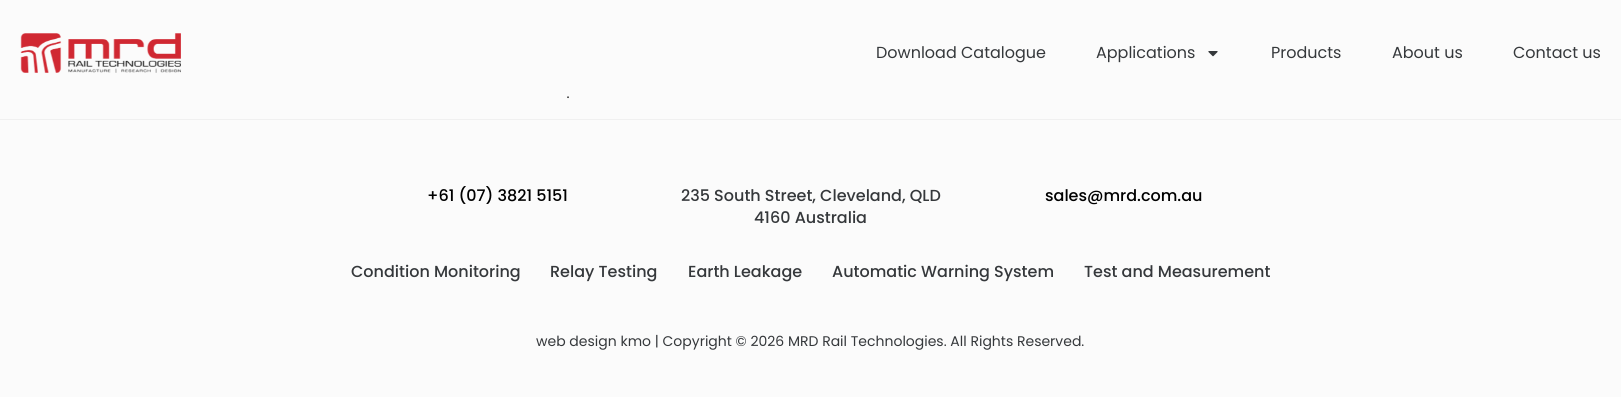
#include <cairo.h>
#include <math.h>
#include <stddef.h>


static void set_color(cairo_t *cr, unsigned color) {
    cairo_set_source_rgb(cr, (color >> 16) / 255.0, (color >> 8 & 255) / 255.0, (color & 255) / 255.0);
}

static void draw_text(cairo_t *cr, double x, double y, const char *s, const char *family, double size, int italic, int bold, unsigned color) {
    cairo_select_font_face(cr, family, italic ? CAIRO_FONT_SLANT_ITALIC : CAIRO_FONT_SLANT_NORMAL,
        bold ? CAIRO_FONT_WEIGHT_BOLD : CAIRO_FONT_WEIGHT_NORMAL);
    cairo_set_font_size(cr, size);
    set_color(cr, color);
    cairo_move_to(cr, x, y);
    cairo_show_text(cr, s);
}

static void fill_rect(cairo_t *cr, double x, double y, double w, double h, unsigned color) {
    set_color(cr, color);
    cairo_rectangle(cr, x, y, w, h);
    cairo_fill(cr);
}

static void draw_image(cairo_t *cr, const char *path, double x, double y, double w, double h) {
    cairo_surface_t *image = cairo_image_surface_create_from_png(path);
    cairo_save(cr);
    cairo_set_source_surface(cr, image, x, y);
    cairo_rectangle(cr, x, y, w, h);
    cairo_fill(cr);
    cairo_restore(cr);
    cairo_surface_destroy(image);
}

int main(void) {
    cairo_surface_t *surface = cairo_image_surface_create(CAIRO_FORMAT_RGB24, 1621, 397);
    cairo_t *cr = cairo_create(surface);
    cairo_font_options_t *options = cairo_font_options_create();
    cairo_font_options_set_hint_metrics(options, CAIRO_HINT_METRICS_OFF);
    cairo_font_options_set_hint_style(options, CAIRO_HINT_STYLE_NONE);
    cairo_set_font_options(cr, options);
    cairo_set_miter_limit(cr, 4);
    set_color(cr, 0xFBFBFB);
    cairo_paint(cr);
    draw_image(cr, "assets/img1.png", 20, 33, 161, 40);
    draw_text(cr, 876, 58, "Download Catalogue", "Poppins", 16, 0, 0, 0x35383B);
    draw_text(cr, 1096, 58, "Applications", "Poppins", 16, 0, 0, 0x35383B);
    draw_image(cr, "assets/img2.png", 1208, 51, 10, 6);
    draw_text(cr, 1271, 58, "Products", "Poppins", 16, 0, 0, 0x35383B);
    draw_text(cr, 1392, 58, "About us", "Poppins", 16, 0, 0, 0x35383B);
    draw_text(cr, 1513, 58, "Contact us", "Poppins", 16, 0, 0, 0x35383B);
    draw_text(cr, 566, 98, ".", "Roboto", 16, 0, 0, 0x333333);
    fill_rect(cr, 0, 119, 1621, 1, 0xF0F0F0);
    draw_text(cr, 427, 201, "+61 (07) 3821 5151", "Poppins Medium", 16, 0, 0, 0x000000);
    draw_text(cr, 681, 201, "235 South Street, Cleveland, QLD", "Poppins Medium", 16, 0, 0, 0x35383B);
    draw_text(cr, 754, 223, "4160 Australia", "Poppins Medium", 16, 0, 0, 0x35383B);
    draw_text(cr, 1045, 201, "sales@mrd.com.au", "Poppins Medium", 16, 0, 0, 0x000000);
    draw_text(cr, 351, 277, "Condition Monitoring", "Poppins Medium", 16, 0, 0, 0x35383B);
    draw_text(cr, 550, 277, "Relay Testing", "Poppins Medium", 16, 0, 0, 0x35383B);
    draw_text(cr, 688, 277, "Earth Leakage", "Poppins Medium", 16, 0, 0, 0x35383B);
    draw_text(cr, 832, 277, "Automatic Warning System", "Poppins Medium", 16, 0, 0, 0x35383B);
    draw_text(cr, 1084, 277, "Test and Measurement", "Poppins Medium", 16, 0, 0, 0x35383B);
    draw_text(cr, 536, 346, "web design kmo | Copyright © 2026 MRD Rail Technologies. All Rights Reserved.", "Poppins", 14, 0, 0, 0x35383B);
    cairo_surface_write_to_png(surface, "output.png");
    cairo_font_options_destroy(options);
    cairo_destroy(cr);
    cairo_surface_destroy(surface);
    return 0;
}
